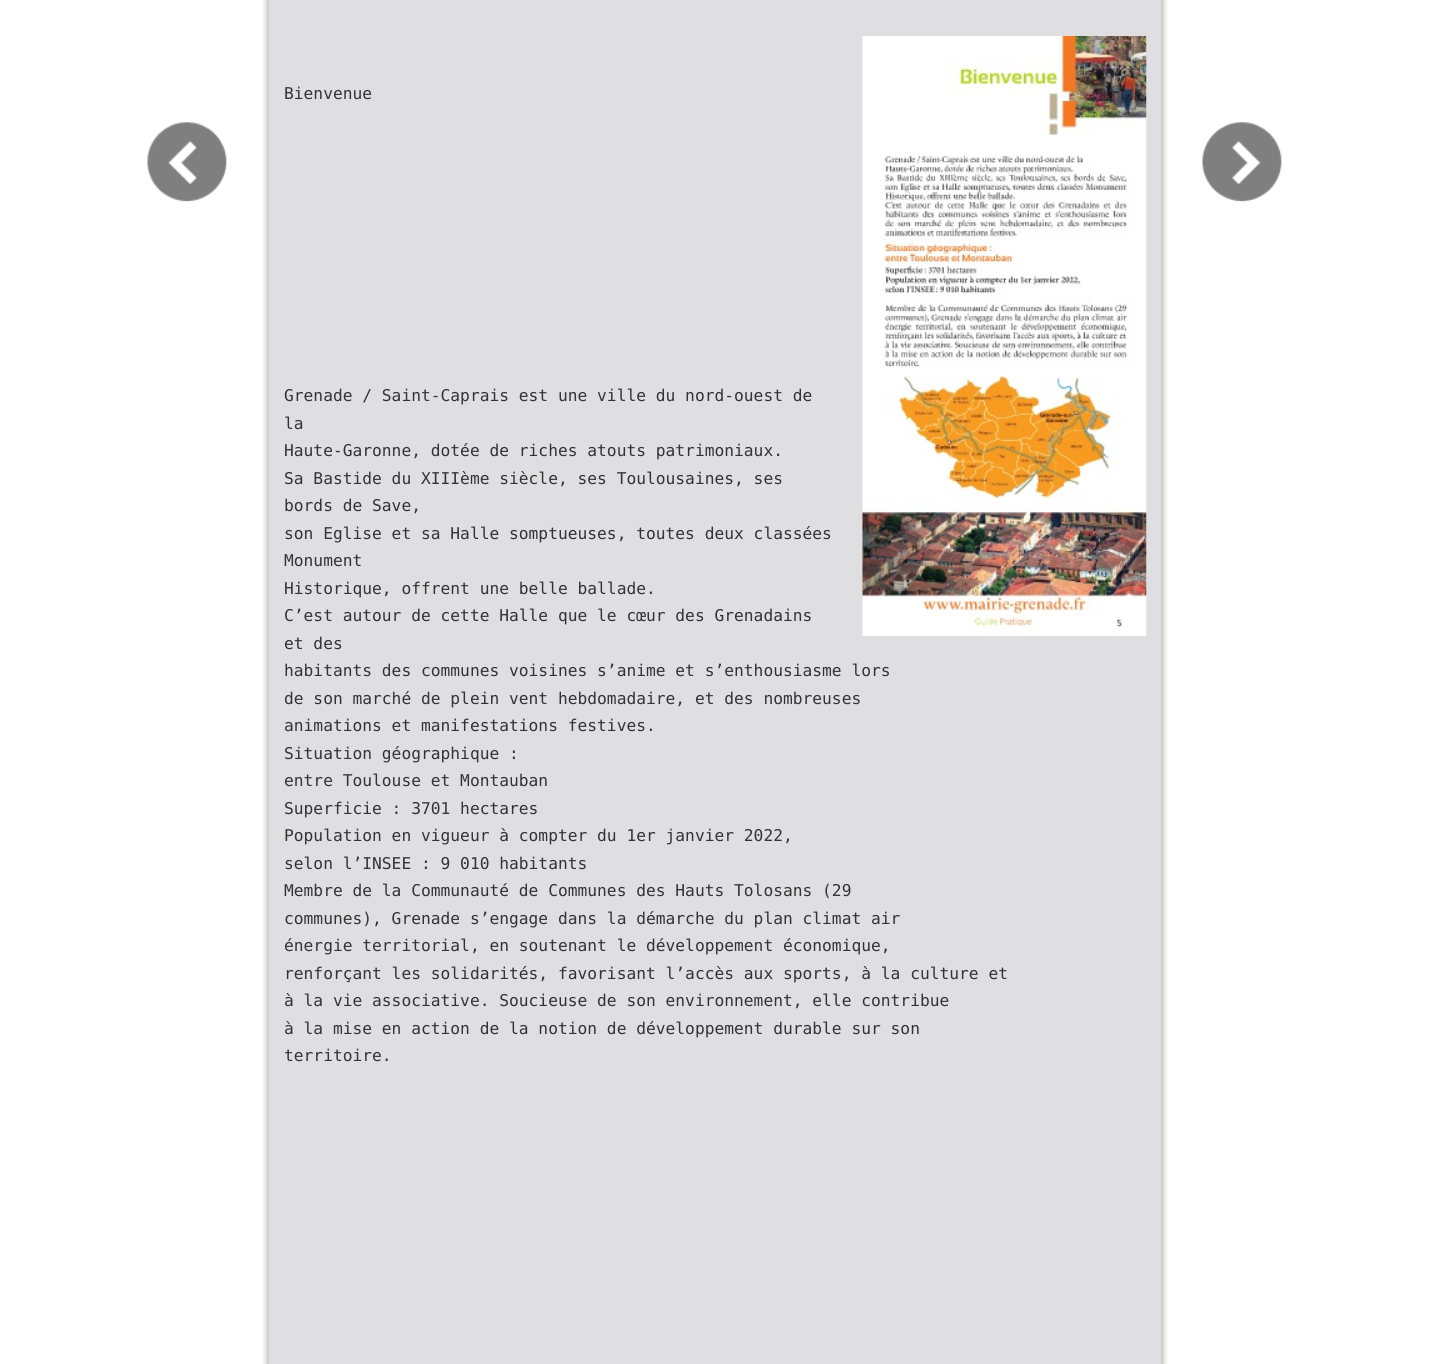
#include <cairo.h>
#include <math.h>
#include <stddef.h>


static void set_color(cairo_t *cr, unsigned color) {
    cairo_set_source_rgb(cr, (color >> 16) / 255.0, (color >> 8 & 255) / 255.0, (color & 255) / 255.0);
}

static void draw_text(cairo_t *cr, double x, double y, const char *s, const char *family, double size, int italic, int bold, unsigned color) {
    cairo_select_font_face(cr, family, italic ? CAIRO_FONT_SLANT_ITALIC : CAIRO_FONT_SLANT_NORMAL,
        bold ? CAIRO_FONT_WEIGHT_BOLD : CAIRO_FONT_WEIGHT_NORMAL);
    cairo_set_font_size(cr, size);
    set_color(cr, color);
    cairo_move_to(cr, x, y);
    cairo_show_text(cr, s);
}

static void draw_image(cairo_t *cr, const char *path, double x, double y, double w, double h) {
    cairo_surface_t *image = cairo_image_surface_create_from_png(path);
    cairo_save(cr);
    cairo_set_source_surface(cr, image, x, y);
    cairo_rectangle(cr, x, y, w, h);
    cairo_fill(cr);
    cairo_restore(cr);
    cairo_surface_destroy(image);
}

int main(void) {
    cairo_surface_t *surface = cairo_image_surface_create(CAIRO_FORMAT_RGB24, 1429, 1364);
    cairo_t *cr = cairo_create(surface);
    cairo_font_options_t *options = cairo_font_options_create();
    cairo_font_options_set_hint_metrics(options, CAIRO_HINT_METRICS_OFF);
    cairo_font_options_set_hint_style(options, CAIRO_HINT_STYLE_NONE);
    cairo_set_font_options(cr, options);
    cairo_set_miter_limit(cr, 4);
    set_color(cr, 0xFFFFFF);
    cairo_paint(cr);
    draw_image(cr, "assets/img1.png", 147, 122, 80, 80);
    draw_image(cr, "assets/img2.png", 262, 0, 906, 1364);
    draw_image(cr, "assets/img3.png", 862, 36, 285, 600);
    draw_text(cr, 284, 99, "Bienvenue", "DejaVu Sans Mono", 16.25, 0, 0, 0x333333);
    draw_text(cr, 284, 401, "Grenade / Saint-Caprais est une ville du nord-ouest de", "DejaVu Sans Mono", 16.25, 0, 0, 0x333333);
    draw_text(cr, 284, 429, "la", "DejaVu Sans Mono", 16.25, 0, 0, 0x333333);
    draw_text(cr, 284, 456, "Haute-Garonne, dotée de riches atouts patrimoniaux.", "DejaVu Sans Mono", 16.25, 0, 0, 0x333333);
    draw_text(cr, 284, 484, "Sa Bastide du XIIIème siècle, ses Toulousaines, ses", "DejaVu Sans Mono", 16.25, 0, 0, 0x333333);
    draw_text(cr, 284, 511, "bords de Save,", "DejaVu Sans Mono", 16.25, 0, 0, 0x333333);
    draw_text(cr, 284, 539, "son Eglise et sa Halle somptueuses, toutes deux classées", "DejaVu Sans Mono", 16.25, 0, 0, 0x333333);
    draw_text(cr, 284, 566, "Monument", "DejaVu Sans Mono", 16.25, 0, 0, 0x333333);
    draw_text(cr, 284, 594, "Historique, offrent une belle ballade.", "DejaVu Sans Mono", 16.25, 0, 0, 0x333333);
    draw_text(cr, 284, 621, "C’est autour de cette Halle que le cœur des Grenadains", "DejaVu Sans Mono", 16.25, 0, 0, 0x333333);
    draw_text(cr, 284, 649, "et des", "DejaVu Sans Mono", 16.25, 0, 0, 0x333333);
    draw_text(cr, 284, 676, "habitants des communes voisines s’anime et s’enthousiasme lors", "DejaVu Sans Mono", 16.25, 0, 0, 0x333333);
    draw_text(cr, 284, 704, "de son marché de plein vent hebdomadaire, et des nombreuses", "DejaVu Sans Mono", 16.25, 0, 0, 0x333333);
    draw_text(cr, 284, 731, "animations et manifestations festives.", "DejaVu Sans Mono", 16.25, 0, 0, 0x333333);
    draw_text(cr, 284, 759, "Situation géographique :", "DejaVu Sans Mono", 16.25, 0, 0, 0x333333);
    draw_text(cr, 284, 786, "entre Toulouse et Montauban", "DejaVu Sans Mono", 16.25, 0, 0, 0x333333);
    draw_text(cr, 284, 814, "Superficie : 3701 hectares", "DejaVu Sans Mono", 16.25, 0, 0, 0x333333);
    draw_text(cr, 284, 841, "Population en vigueur à compter du 1er janvier 2022,", "DejaVu Sans Mono", 16.25, 0, 0, 0x333333);
    draw_text(cr, 284, 869, "selon l’INSEE : 9 010 habitants", "DejaVu Sans Mono", 16.25, 0, 0, 0x333333);
    draw_text(cr, 284, 896, "Membre de la Communauté de Communes des Hauts Tolosans (29", "DejaVu Sans Mono", 16.25, 0, 0, 0x333333);
    draw_text(cr, 284, 924, "communes), Grenade s’engage dans la démarche du plan climat air", "DejaVu Sans Mono", 16.25, 0, 0, 0x333333);
    draw_text(cr, 284, 951, "énergie territorial, en soutenant le développement économique,", "DejaVu Sans Mono", 16.25, 0, 0, 0x333333);
    draw_text(cr, 284, 979, "renforçant les solidarités, favorisant l’accès aux sports, à la culture et", "DejaVu Sans Mono", 16.25, 0, 0, 0x333333);
    draw_text(cr, 284, 1006, "à la vie associative. Soucieuse de son environnement, elle contribue", "DejaVu Sans Mono", 16.25, 0, 0, 0x333333);
    draw_text(cr, 284, 1034, "à la mise en action de la notion de développement durable sur son", "DejaVu Sans Mono", 16.25, 0, 0, 0x333333);
    draw_text(cr, 284, 1061, "territoire.", "DejaVu Sans Mono", 16.25, 0, 0, 0x333333);
    draw_image(cr, "assets/img4.png", 1202, 122, 80, 80);
    cairo_surface_write_to_png(surface, "output.png");
    cairo_font_options_destroy(options);
    cairo_destroy(cr);
    cairo_surface_destroy(surface);
    return 0;
}
